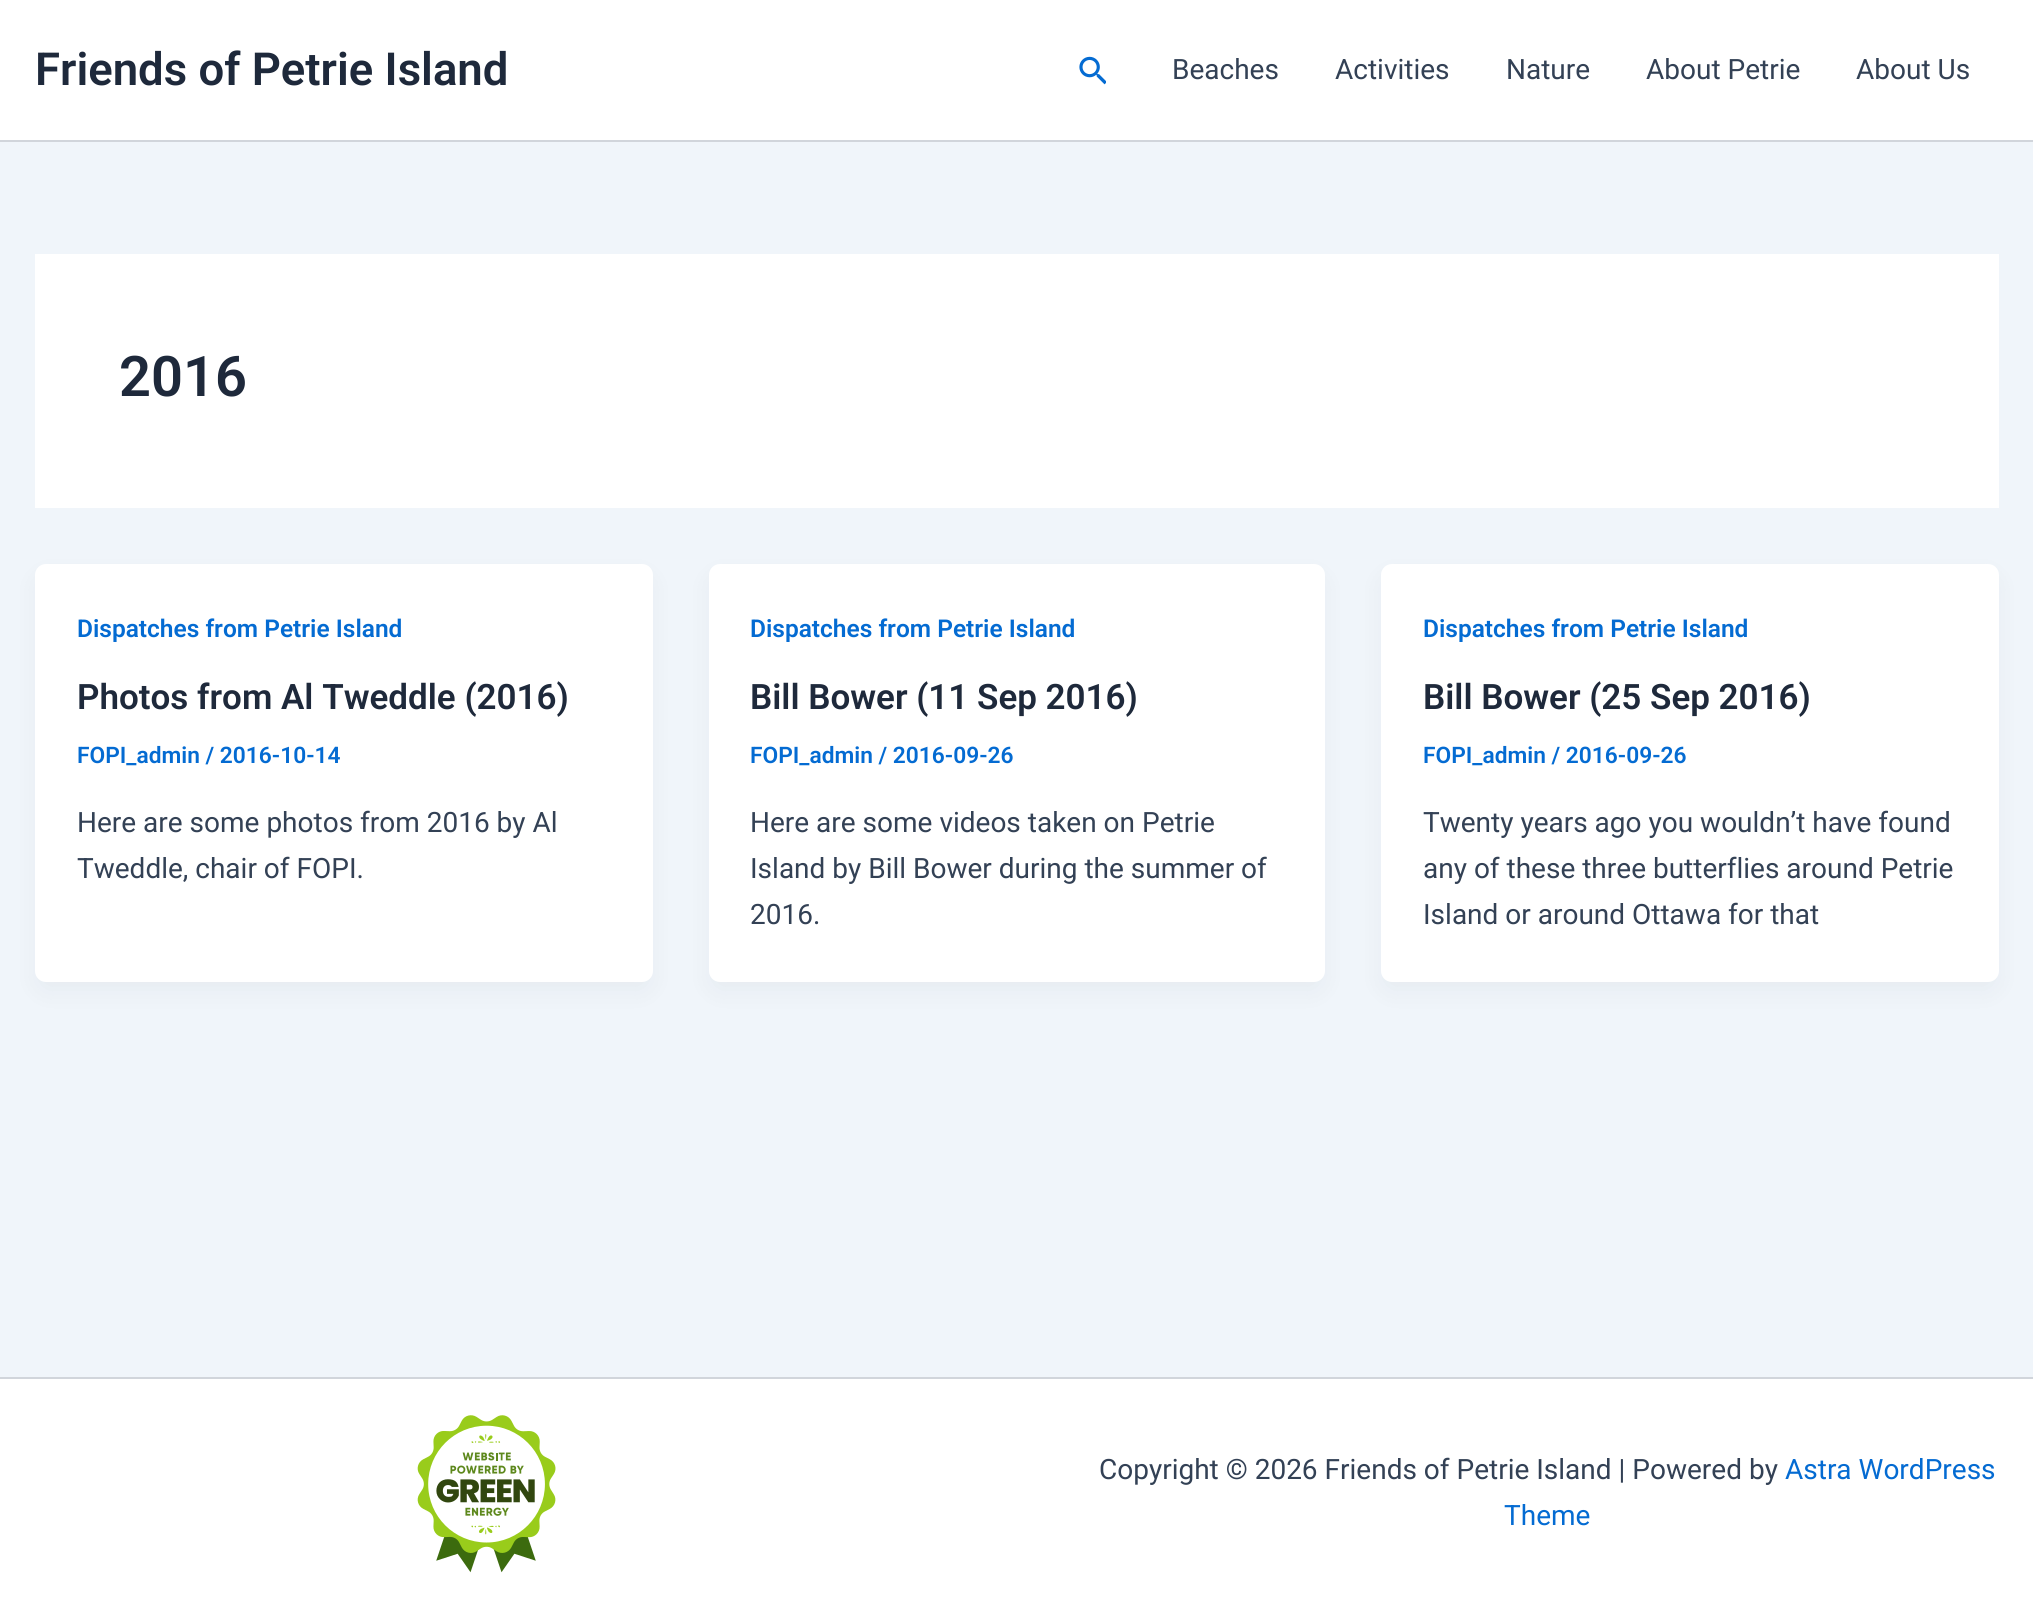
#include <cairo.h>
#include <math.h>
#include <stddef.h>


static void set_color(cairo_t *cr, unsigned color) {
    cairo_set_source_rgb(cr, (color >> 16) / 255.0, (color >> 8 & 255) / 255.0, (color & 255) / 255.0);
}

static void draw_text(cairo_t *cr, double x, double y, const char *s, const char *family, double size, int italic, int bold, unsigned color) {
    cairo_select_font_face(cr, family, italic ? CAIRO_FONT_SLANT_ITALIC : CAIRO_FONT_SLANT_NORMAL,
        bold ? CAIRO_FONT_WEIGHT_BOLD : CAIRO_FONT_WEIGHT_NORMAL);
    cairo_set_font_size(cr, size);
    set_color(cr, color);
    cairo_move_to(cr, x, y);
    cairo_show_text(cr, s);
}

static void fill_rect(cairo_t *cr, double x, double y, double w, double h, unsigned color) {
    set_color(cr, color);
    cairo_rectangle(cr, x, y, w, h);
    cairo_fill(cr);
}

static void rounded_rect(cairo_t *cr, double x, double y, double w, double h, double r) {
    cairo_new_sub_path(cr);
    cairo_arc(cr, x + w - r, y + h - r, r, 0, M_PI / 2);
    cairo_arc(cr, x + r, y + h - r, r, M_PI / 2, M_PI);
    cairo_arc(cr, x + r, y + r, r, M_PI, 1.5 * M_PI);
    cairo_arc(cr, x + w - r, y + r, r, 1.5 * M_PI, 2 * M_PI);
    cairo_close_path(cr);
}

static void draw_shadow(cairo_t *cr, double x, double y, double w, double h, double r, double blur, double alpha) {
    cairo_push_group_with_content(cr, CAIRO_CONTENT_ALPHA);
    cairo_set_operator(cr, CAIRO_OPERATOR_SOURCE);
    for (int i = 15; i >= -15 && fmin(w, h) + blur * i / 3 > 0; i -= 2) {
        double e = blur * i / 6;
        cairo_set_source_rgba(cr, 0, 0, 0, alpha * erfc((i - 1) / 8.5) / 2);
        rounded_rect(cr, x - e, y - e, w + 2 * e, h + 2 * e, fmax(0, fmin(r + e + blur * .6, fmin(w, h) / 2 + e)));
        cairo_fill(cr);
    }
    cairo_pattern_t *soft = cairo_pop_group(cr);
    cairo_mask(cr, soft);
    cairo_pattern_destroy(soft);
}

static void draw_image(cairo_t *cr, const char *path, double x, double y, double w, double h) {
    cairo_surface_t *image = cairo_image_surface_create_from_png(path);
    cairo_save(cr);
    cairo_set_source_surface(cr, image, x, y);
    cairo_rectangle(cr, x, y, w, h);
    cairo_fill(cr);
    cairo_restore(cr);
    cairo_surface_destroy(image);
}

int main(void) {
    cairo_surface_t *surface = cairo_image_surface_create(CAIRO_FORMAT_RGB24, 2033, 1608);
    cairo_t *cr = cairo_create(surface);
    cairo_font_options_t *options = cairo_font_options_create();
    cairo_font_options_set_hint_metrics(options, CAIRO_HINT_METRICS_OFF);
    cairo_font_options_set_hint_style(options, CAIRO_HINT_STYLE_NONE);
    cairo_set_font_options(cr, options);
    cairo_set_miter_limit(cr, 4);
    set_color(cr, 0xF0F5FA);
    cairo_paint(cr);
    fill_rect(cr, 0, 0, 2033, 140, 0xFFFFFF);
    fill_rect(cr, 0, 140, 2033, 2, 0xD1D5DB);
    draw_text(cr, 35, 85, "Friends of Petrie Island", "Roboto SemiBold", 45.5, 0, 0, 0x1E293B);
    draw_image(cr, "assets/img1.png", 1079, 56, 27, 29);
    draw_text(cr, 1172, 79, "Beaches", "Roboto", 28, 0, 0, 0x334155);
    draw_text(cr, 1335, 79, "Activities", "Roboto", 28, 0, 0, 0x334155);
    draw_text(cr, 1506, 79, "Nature", "Roboto", 28, 0, 0, 0x334155);
    draw_text(cr, 1646, 79, "About Petrie", "Roboto", 28, 0, 0, 0x334155);
    draw_text(cr, 1856, 79, "About Us", "Roboto", 28, 0, 0, 0x334155);
    fill_rect(cr, 35, 254, 1964, 254, 0xFFFFFF);
    draw_text(cr, 119, 396, "2016", "Roboto SemiBold", 56, 0, 0, 0x1E293B);
    set_color(cr, 0x101828);
    draw_shadow(cr, 39, 578, 610, 411, 7, 13, 0.05);
    set_color(cr, 0xFFFFFF);
    rounded_rect(cr, 35, 564, 618, 418, 11);
    cairo_fill(cr);
    draw_text(cr, 77, 637, "Dispatches from Petrie Island", "Roboto SemiBold", 24.5, 0, 0, 0x046BD2);
    draw_text(cr, 77, 709, "Photos from Al Tweddle (2016)", "Roboto SemiBold", 35, 0, 0, 0x1E293B);
    draw_text(cr, 77, 763, "FOPI_admin / 2016-10-14", "Roboto SemiBold", 22.75, 0, 0, 0x046BD2);
    draw_text(cr, 77, 832, "Here are some photos from 2016 by Al", "Roboto", 28, 0, 0, 0x334155);
    draw_text(cr, 77, 878, "Tweddle, chair of FOPI.", "Roboto", 28, 0, 0, 0x334155);
    set_color(cr, 0x101828);
    draw_shadow(cr, 712, 578, 609, 411, 7, 13, 0.05);
    set_color(cr, 0xFFFFFF);
    rounded_rect(cr, 709, 564, 616, 418, 11);
    cairo_fill(cr);
    draw_text(cr, 750, 637, "Dispatches from Petrie Island", "Roboto SemiBold", 24.5, 0, 0, 0x046BD2);
    draw_text(cr, 750, 709, "Bill Bower (11 Sep 2016)", "Roboto SemiBold", 35, 0, 0, 0x1E293B);
    draw_text(cr, 750, 763, "FOPI_admin / 2016-09-26", "Roboto SemiBold", 22.75, 0, 0, 0x046BD2);
    draw_text(cr, 750, 832, "Here are some videos taken on Petrie", "Roboto", 28, 0, 0, 0x334155);
    draw_text(cr, 750, 878, "Island by Bill Bower during the summer of", "Roboto", 28, 0, 0, 0x334155);
    draw_text(cr, 750, 924, "2016.", "Roboto", 28, 0, 0, 0x334155);
    set_color(cr, 0x101828);
    draw_shadow(cr, 1384, 578, 611, 411, 7, 13, 0.05);
    set_color(cr, 0xFFFFFF);
    rounded_rect(cr, 1381, 564, 618, 418, 11);
    cairo_fill(cr);
    draw_text(cr, 1423, 637, "Dispatches from Petrie Island", "Roboto SemiBold", 24.5, 0, 0, 0x046BD2);
    draw_text(cr, 1423, 709, "Bill Bower (25 Sep 2016)", "Roboto SemiBold", 35, 0, 0, 0x1E293B);
    draw_text(cr, 1423, 763, "FOPI_admin / 2016-09-26", "Roboto SemiBold", 22.75, 0, 0, 0x046BD2);
    draw_text(cr, 1423, 832, "Twenty years ago you wouldn’t have found", "Roboto", 28, 0, 0, 0x334155);
    draw_text(cr, 1423, 878, "any of these three butterflies around Petrie", "Roboto", 28, 0, 0, 0x334155);
    draw_text(cr, 1423, 924, "Island or around Ottawa for that", "Roboto", 28, 0, 0, 0x334155);
    fill_rect(cr, 0, 1379, 2033, 229, 0xFFFFFF);
    fill_rect(cr, 0, 1377, 2033, 2, 0xD1D5DB);
    draw_image(cr, "assets/img2.png", 417, 1415, 139, 158);
    draw_text(cr, 1099, 1479, "Copyright © 2026 Friends of Petrie Island | Powered by", "Roboto", 28, 0, 0, 0x334155);
    draw_text(cr, 1785, 1479, "Astra WordPress", "Roboto", 28, 0, 0, 0x046BD2);
    draw_text(cr, 1504, 1525, "Theme", "Roboto", 28, 0, 0, 0x046BD2);
    cairo_surface_write_to_png(surface, "output.png");
    cairo_font_options_destroy(options);
    cairo_destroy(cr);
    cairo_surface_destroy(surface);
    return 0;
}
